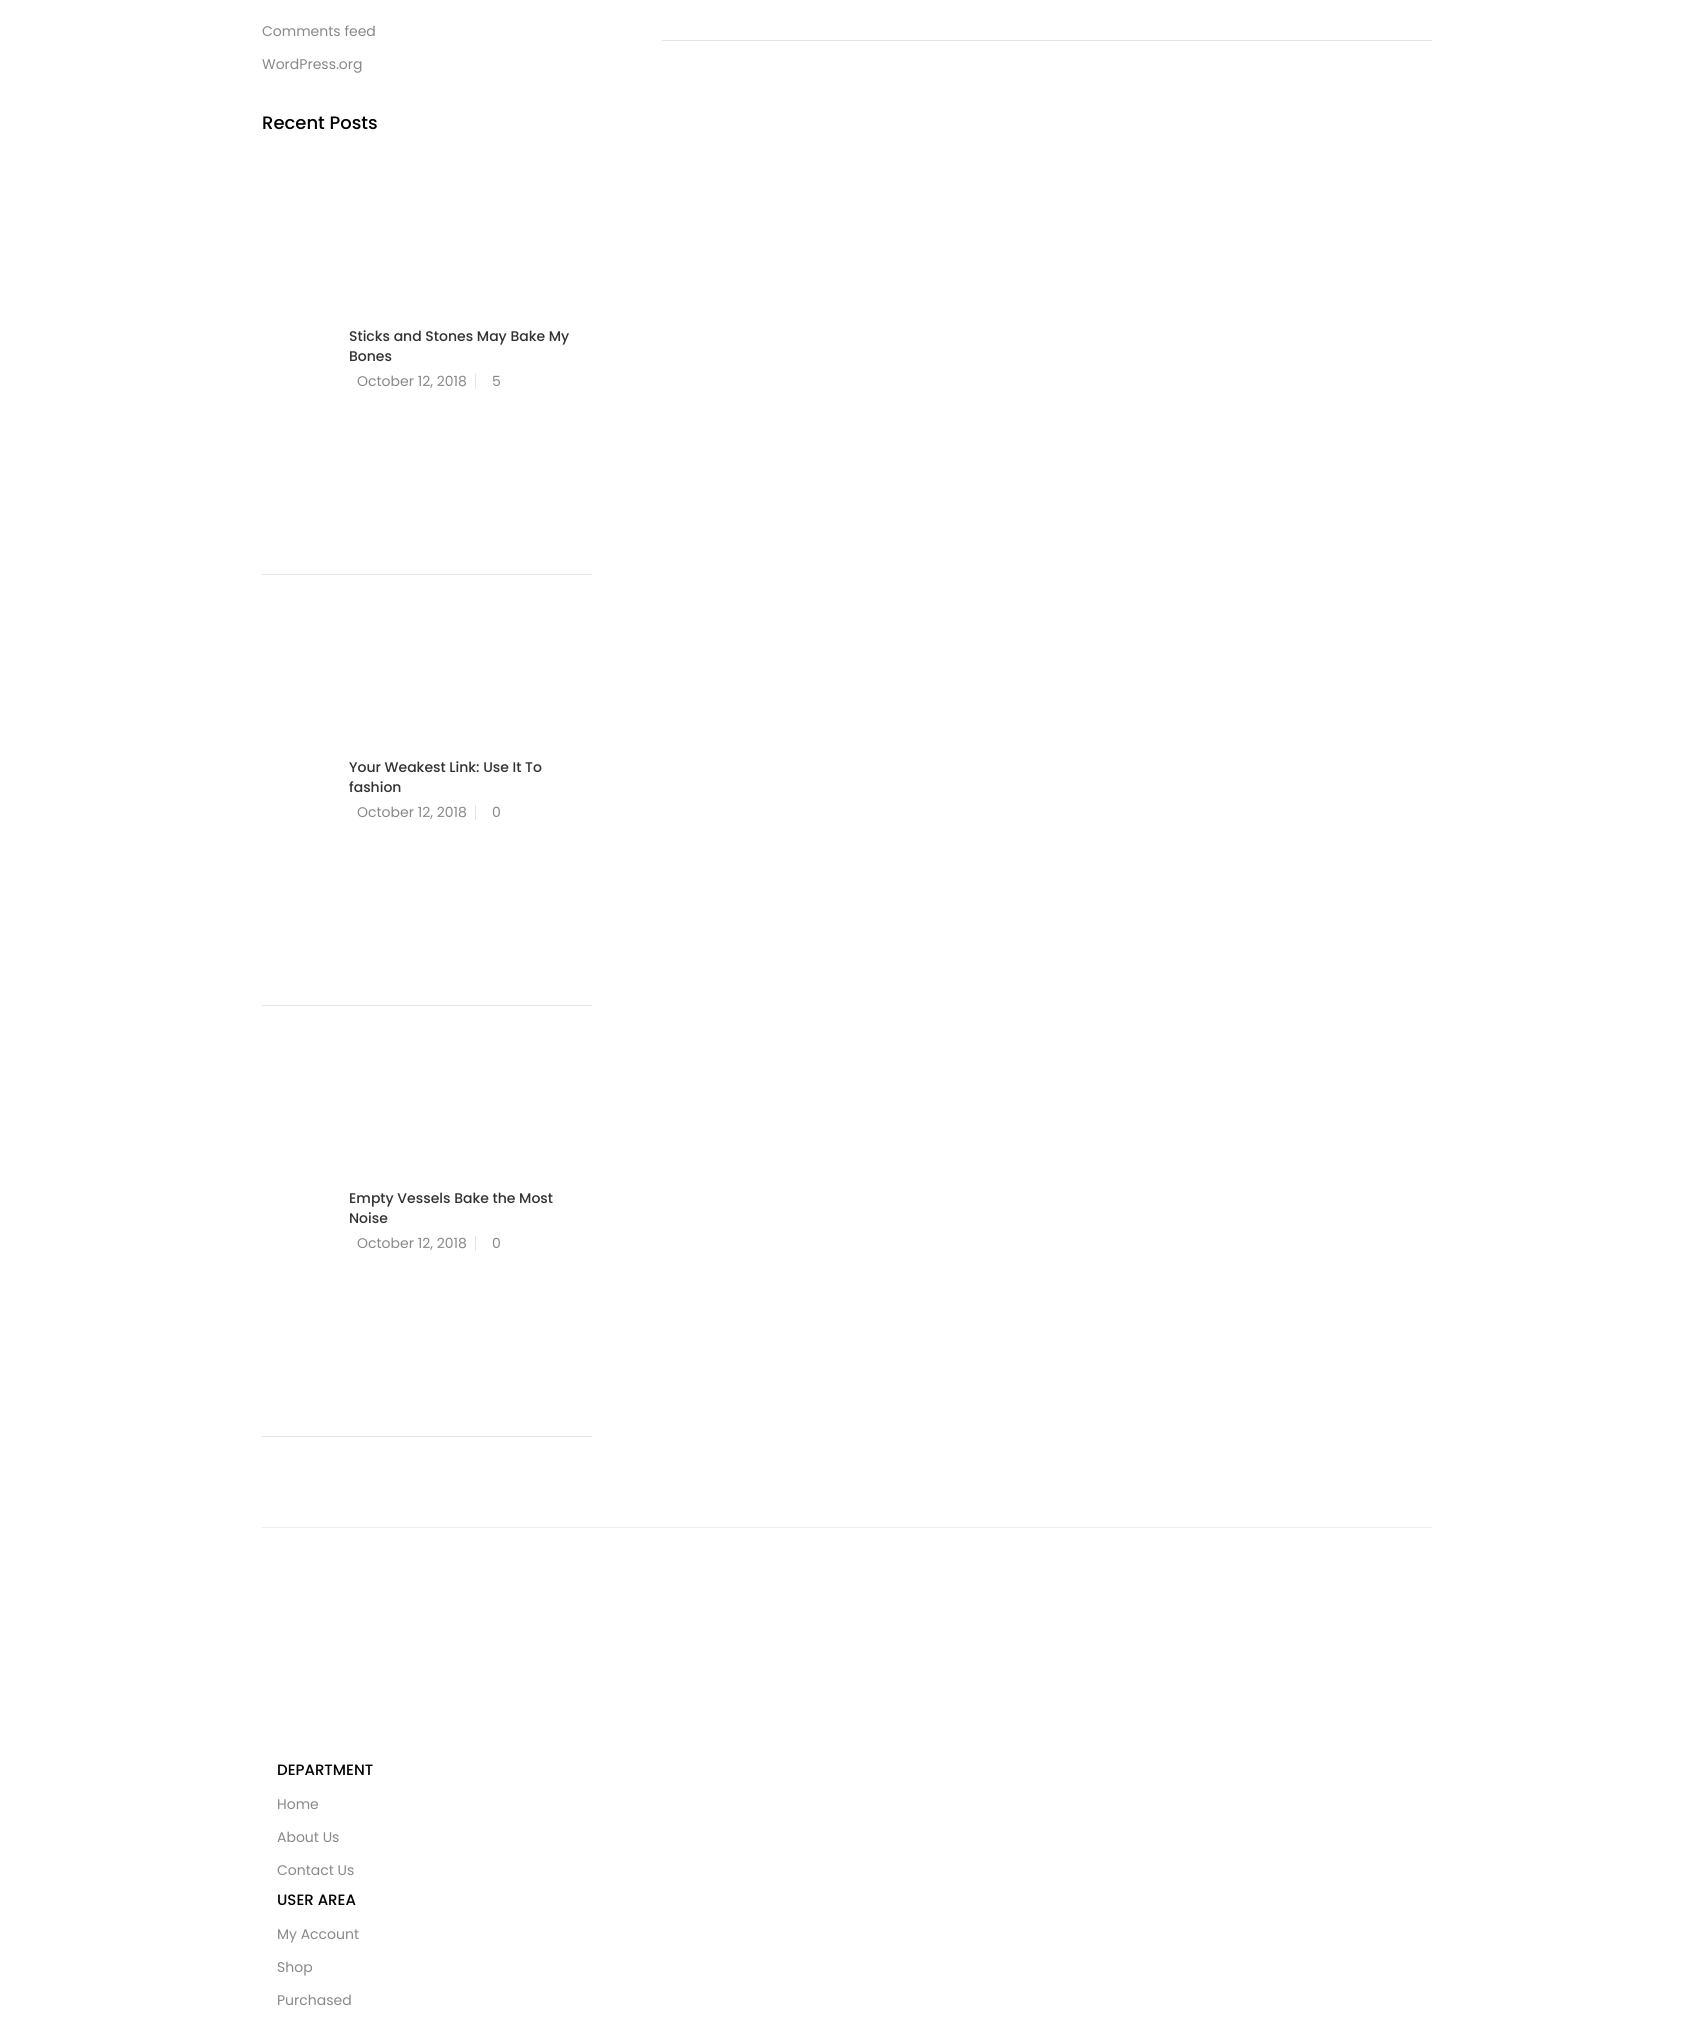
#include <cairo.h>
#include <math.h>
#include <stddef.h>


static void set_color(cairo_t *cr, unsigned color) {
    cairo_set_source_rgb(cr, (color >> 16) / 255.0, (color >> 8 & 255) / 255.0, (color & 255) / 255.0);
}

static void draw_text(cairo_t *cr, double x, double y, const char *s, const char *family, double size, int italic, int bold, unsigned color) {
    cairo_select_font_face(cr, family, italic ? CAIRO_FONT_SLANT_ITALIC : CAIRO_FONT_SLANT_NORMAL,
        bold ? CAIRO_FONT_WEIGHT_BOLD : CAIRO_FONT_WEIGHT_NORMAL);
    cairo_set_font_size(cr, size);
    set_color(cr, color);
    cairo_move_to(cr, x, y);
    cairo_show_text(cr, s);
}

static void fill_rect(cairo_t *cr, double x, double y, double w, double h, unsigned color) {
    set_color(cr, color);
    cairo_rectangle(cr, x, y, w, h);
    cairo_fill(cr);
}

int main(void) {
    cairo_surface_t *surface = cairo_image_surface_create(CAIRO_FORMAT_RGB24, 1694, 2027);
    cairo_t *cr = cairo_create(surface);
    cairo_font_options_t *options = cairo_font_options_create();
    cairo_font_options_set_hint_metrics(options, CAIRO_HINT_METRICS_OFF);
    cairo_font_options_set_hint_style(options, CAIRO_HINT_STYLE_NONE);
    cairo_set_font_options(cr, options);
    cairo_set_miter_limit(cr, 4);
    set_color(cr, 0xFFFFFF);
    cairo_paint(cr);
    draw_text(cr, 262, 36, "Comments feed", "Poppins", 14, 0, 0, 0x888888);
    draw_text(cr, 262, 69, "WordPress.org", "Poppins", 14, 0, 0, 0x888888);
    draw_text(cr, 262, 129, "Recent Posts", "Poppins Medium", 18, 0, 0, 0x000000);
    fill_rect(cr, 262, 574, 330, 1, 0xE5E5E5);
    draw_text(cr, 349, 341, "Sticks and Stones May Bake My", "Poppins Medium", 14, 0, 0, 0x323232);
    draw_text(cr, 349, 361, "Bones", "Poppins Medium", 14, 0, 0, 0x323232);
    draw_text(cr, 357, 386, "October 12, 2018", "Poppins", 14, 0, 0, 0x888888);
    fill_rect(cr, 475, 374, 1, 15, 0xE5E5E5);
    draw_text(cr, 492, 386, "5", "Poppins", 14, 0, 0, 0x888888);
    fill_rect(cr, 262, 1005, 330, 1, 0xE5E5E5);
    draw_text(cr, 349, 772, "Your Weakest Link: Use It To", "Poppins Medium", 14, 0, 0, 0x323232);
    draw_text(cr, 349, 792, "fashion", "Poppins Medium", 14, 0, 0, 0x323232);
    draw_text(cr, 357, 817, "October 12, 2018", "Poppins", 14, 0, 0, 0x888888);
    fill_rect(cr, 475, 805, 1, 15, 0xE5E5E5);
    draw_text(cr, 492, 817, "0", "Poppins", 14, 0, 0, 0x888888);
    fill_rect(cr, 262, 1436, 330, 1, 0xE5E5E5);
    draw_text(cr, 349, 1203, "Empty Vessels Bake the Most", "Poppins Medium", 14, 0, 0, 0x323232);
    draw_text(cr, 349, 1223, "Noise", "Poppins Medium", 14, 0, 0, 0x323232);
    draw_text(cr, 357, 1248, "October 12, 2018", "Poppins", 14, 0, 0, 0x888888);
    fill_rect(cr, 475, 1236, 1, 15, 0xE5E5E5);
    draw_text(cr, 492, 1248, "0", "Poppins", 14, 0, 0, 0x888888);
    fill_rect(cr, 662, 40, 770, 1, 0xE5E5E5);
    fill_rect(cr, 262, 1527, 1170, 1, 0xEEEEEE);
    draw_text(cr, 277, 1775, "DEPARTMENT", "Poppins Medium", 15, 0, 0, 0x000000);
    draw_text(cr, 277, 1809, "Home", "Poppins", 14, 0, 0, 0x888888);
    draw_text(cr, 277, 1842, "About Us", "Poppins", 14, 0, 0, 0x888888);
    draw_text(cr, 277, 1875, "Contact Us", "Poppins", 14, 0, 0, 0x888888);
    draw_text(cr, 277, 1905, "USER AREA", "Poppins Medium", 15, 0, 0, 0x000000);
    draw_text(cr, 277, 1939, "My Account", "Poppins", 14, 0, 0, 0x888888);
    draw_text(cr, 277, 1972, "Shop", "Poppins", 14, 0, 0, 0x888888);
    draw_text(cr, 277, 2005, "Purchased", "Poppins", 14, 0, 0, 0x888888);
    cairo_surface_write_to_png(surface, "output.png");
    cairo_font_options_destroy(options);
    cairo_destroy(cr);
    cairo_surface_destroy(surface);
    return 0;
}
